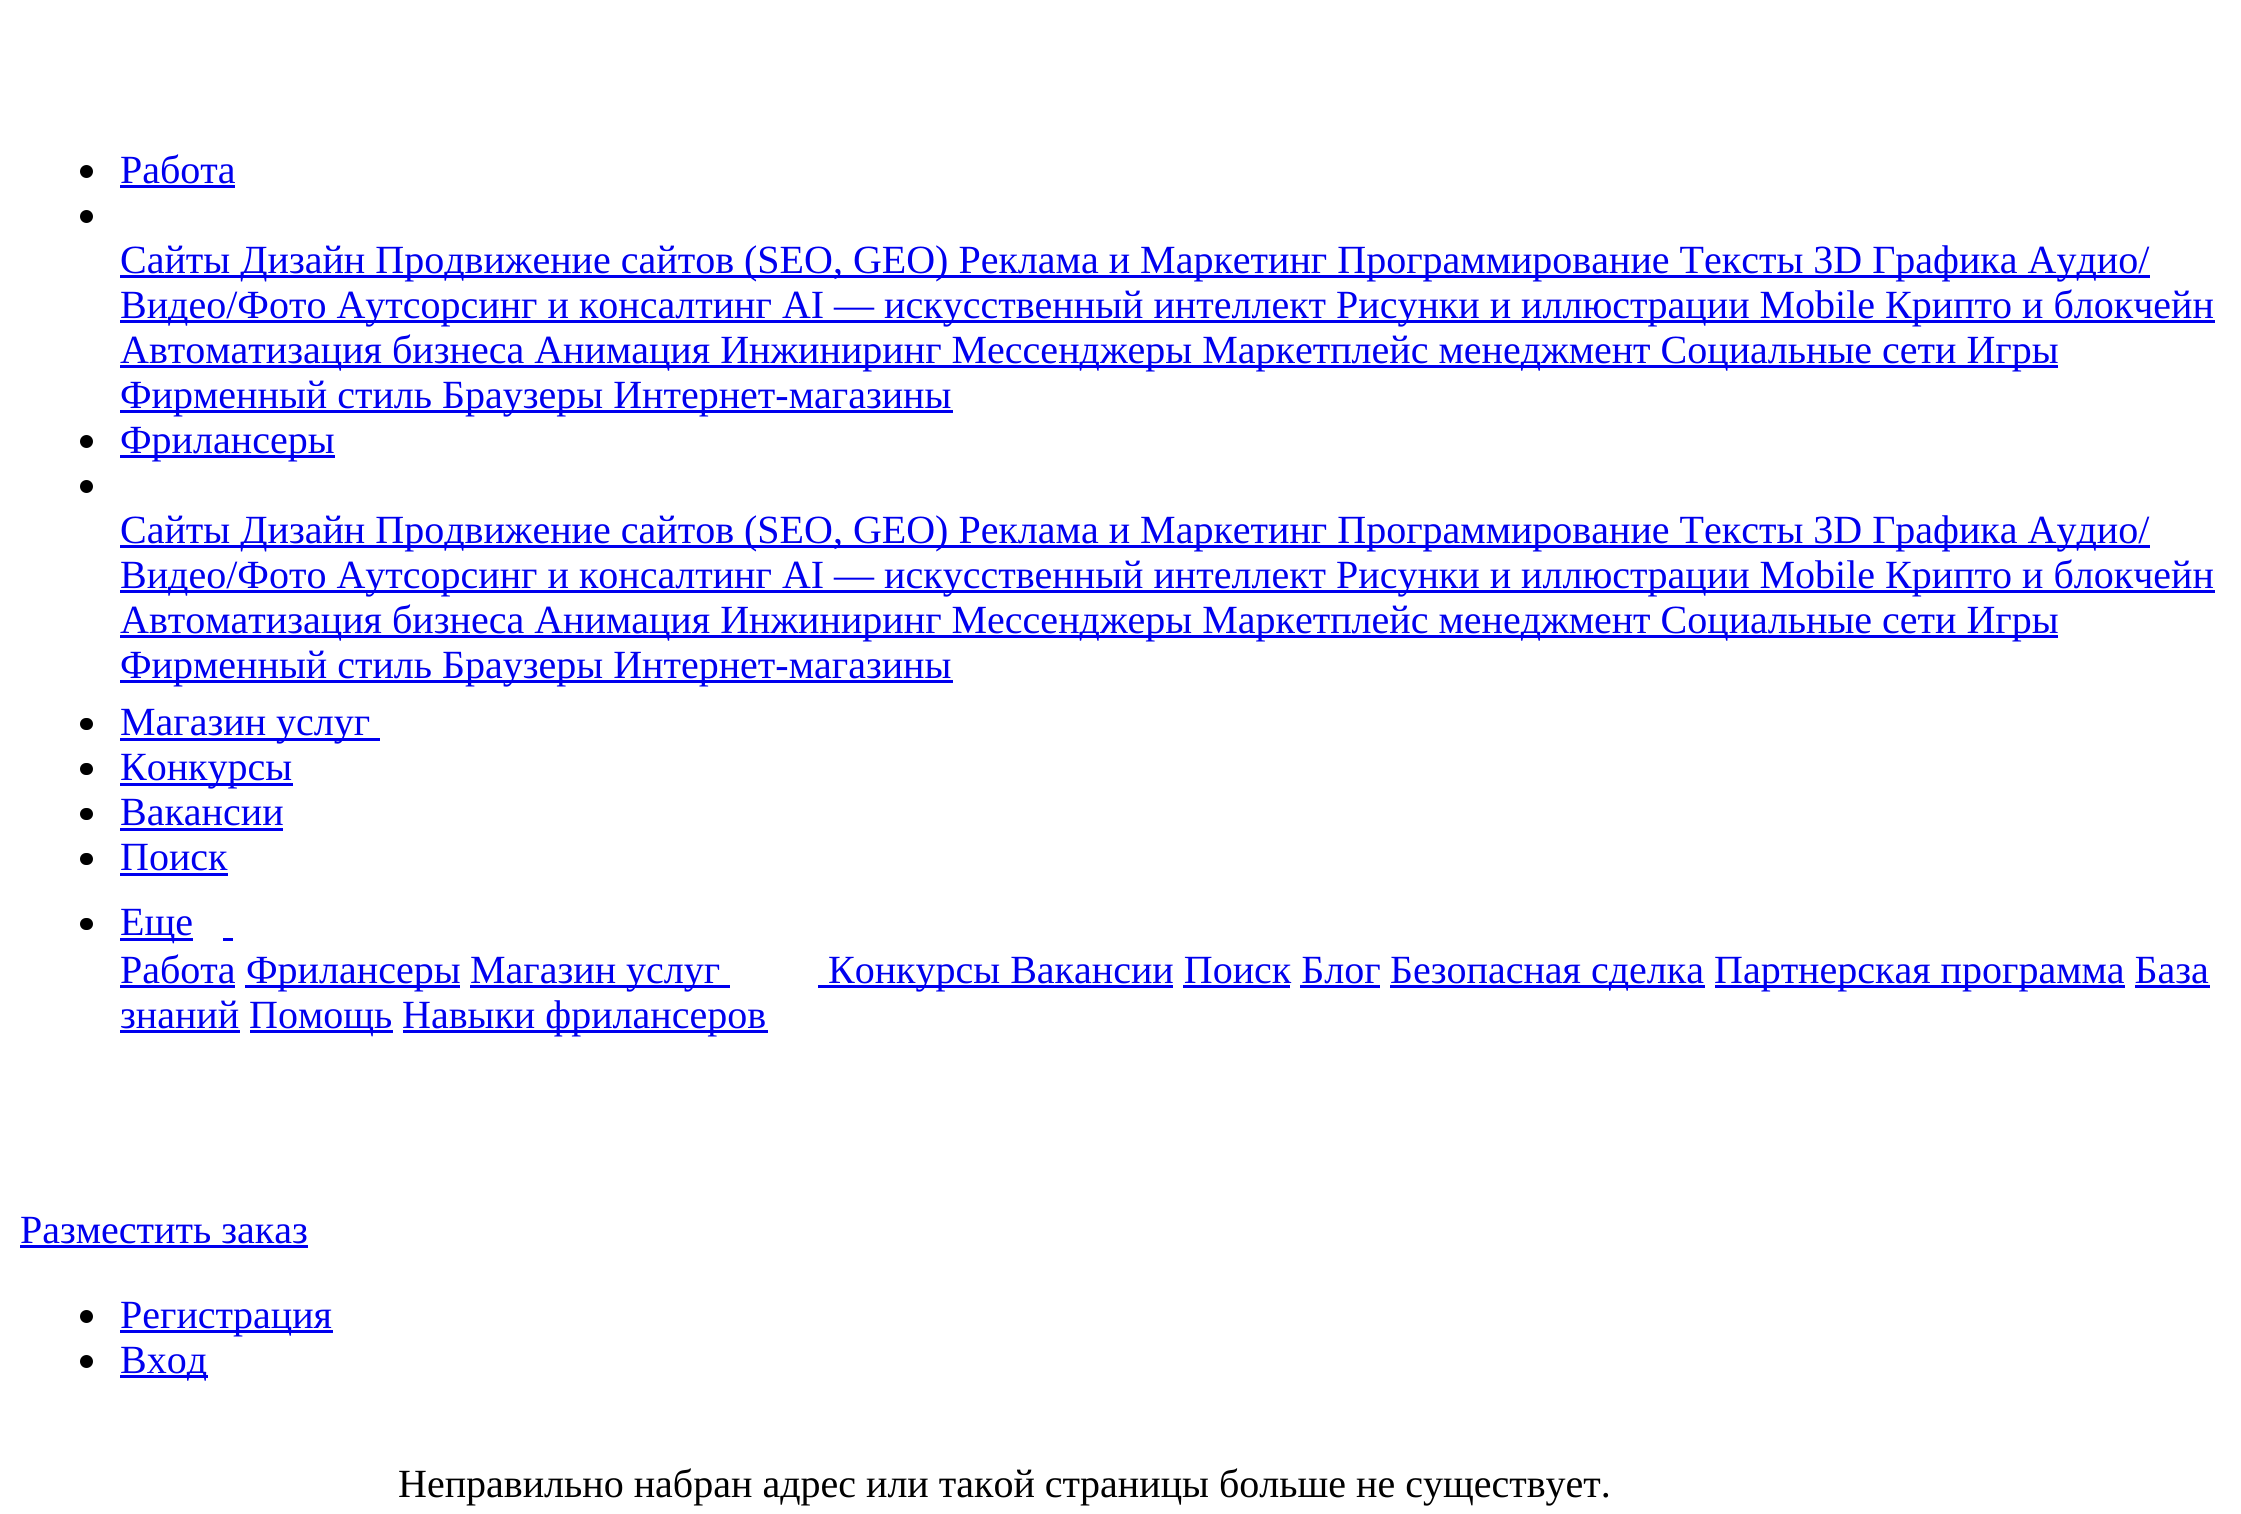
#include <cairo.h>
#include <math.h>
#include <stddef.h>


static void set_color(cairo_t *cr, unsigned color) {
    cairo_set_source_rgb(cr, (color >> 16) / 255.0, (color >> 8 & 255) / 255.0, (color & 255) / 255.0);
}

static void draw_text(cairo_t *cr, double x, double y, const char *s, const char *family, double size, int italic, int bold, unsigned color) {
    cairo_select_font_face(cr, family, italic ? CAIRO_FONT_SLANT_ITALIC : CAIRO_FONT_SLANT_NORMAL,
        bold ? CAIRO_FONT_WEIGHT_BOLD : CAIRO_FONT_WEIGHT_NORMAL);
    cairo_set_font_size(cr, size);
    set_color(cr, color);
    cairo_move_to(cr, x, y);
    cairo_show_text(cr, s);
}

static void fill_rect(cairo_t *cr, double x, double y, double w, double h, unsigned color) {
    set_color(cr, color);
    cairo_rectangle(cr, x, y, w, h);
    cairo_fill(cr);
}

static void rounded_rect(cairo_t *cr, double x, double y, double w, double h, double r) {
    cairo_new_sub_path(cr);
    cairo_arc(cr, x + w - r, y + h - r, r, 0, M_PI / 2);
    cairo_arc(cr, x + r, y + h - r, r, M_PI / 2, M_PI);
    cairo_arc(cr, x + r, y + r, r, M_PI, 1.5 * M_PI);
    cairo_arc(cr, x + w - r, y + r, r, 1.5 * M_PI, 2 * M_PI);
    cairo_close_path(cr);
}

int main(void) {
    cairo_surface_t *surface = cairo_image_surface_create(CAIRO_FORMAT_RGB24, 2241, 1514);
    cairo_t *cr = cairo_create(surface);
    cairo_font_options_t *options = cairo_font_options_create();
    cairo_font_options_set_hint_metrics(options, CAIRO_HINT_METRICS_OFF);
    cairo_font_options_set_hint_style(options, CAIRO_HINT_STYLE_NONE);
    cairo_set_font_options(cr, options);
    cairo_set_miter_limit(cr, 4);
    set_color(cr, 0xFFFFFF);
    cairo_paint(cr);
    set_color(cr, 0x000000);
    cairo_arc(cr, 86.5, 171.5, 6.5, 0, 2 * M_PI);
    cairo_fill(cr);
    draw_text(cr, 120, 183, "Работа", "Liberation Serif", 40, 0, 0, 0x0000EE);
    fill_rect(cr, 120, 185, 115, 3, 0x0000EE);
    set_color(cr, 0x000000);
    cairo_new_path(cr);
    cairo_arc(cr, 86.5, 216.5, 6.5, 0, 2 * M_PI);
    cairo_fill(cr);
    fill_rect(cr, 120, 275, 2030, 3, 0x0000EE);
    draw_text(cr, 120, 273, "Сайты Дизайн Продвижение сайтов (SEO, GEO) Реклама и Маркетинг Программирование Тексты 3D Графика Аудио/", "Liberation Serif", 40, 0, 0, 0x0000EE);
    fill_rect(cr, 120, 320, 2095, 3, 0x0000EE);
    draw_text(cr, 120, 318, "Видео/Фото Аутсорсинг и консалтинг AI — искусственный интеллект Рисунки и иллюстрации Mobile Крипто и блокчейн", "Liberation Serif", 40, 0, 0, 0x0000EE);
    fill_rect(cr, 120, 365, 1938, 3, 0x0000EE);
    draw_text(cr, 120, 363, "Автоматизация бизнеса Анимация Инжиниринг Мессенджеры Маркетплейс менеджмент Социальные сети Игры", "Liberation Serif", 40, 0, 0, 0x0000EE);
    fill_rect(cr, 120, 410, 833, 3, 0x0000EE);
    draw_text(cr, 120, 408, "Фирменный стиль Браузеры Интернет-магазины", "Liberation Serif", 40, 0, 0, 0x0000EE);
    set_color(cr, 0x000000);
    cairo_new_path(cr);
    cairo_arc(cr, 86.5, 441.5, 6.5, 0, 2 * M_PI);
    cairo_fill(cr);
    fill_rect(cr, 120, 455, 215, 3, 0x0000EE);
    draw_text(cr, 120, 453, "Фрилансеры", "Liberation Serif", 40, 0, 0, 0x0000EE);
    set_color(cr, 0x000000);
    cairo_new_path(cr);
    cairo_arc(cr, 86.5, 486.5, 6.5, 0, 2 * M_PI);
    cairo_fill(cr);
    fill_rect(cr, 120, 545, 2030, 3, 0x0000EE);
    draw_text(cr, 120, 543, "Сайты Дизайн Продвижение сайтов (SEO, GEO) Реклама и Маркетинг Программирование Тексты 3D Графика Аудио/", "Liberation Serif", 40, 0, 0, 0x0000EE);
    fill_rect(cr, 120, 590, 2095, 3, 0x0000EE);
    draw_text(cr, 120, 588, "Видео/Фото Аутсорсинг и консалтинг AI — искусственный интеллект Рисунки и иллюстрации Mobile Крипто и блокчейн", "Liberation Serif", 40, 0, 0, 0x0000EE);
    fill_rect(cr, 120, 635, 1938, 3, 0x0000EE);
    draw_text(cr, 120, 633, "Автоматизация бизнеса Анимация Инжиниринг Мессенджеры Маркетплейс менеджмент Социальные сети Игры", "Liberation Serif", 40, 0, 0, 0x0000EE);
    fill_rect(cr, 120, 680, 833, 3, 0x0000EE);
    draw_text(cr, 120, 678, "Фирменный стиль Браузеры Интернет-магазины", "Liberation Serif", 40, 0, 0, 0x0000EE);
    set_color(cr, 0x000000);
    rounded_rect(cr, 80, 718, 13, 12, 6);
    cairo_fill(cr);
    fill_rect(cr, 120, 738, 260, 3, 0x0000EE);
    draw_text(cr, 120, 735, "Магазин услуг", "Liberation Serif", 40, 0, 0, 0x0000EE);
    set_color(cr, 0x000000);
    rounded_rect(cr, 80, 763, 13, 12, 6);
    cairo_fill(cr);
    fill_rect(cr, 120, 783, 173, 3, 0x0000EE);
    draw_text(cr, 120, 780, "Конкурсы", "Liberation Serif", 40, 0, 0, 0x0000EE);
    set_color(cr, 0x000000);
    rounded_rect(cr, 80, 808, 13, 12, 6);
    cairo_fill(cr);
    draw_text(cr, 120, 825, "Вакансии", "Liberation Serif", 40, 0, 0, 0x0000EE);
    fill_rect(cr, 120, 828, 163, 3, 0x0000EE);
    set_color(cr, 0x000000);
    rounded_rect(cr, 80, 853, 13, 12, 6);
    cairo_fill(cr);
    draw_text(cr, 120, 870, "Поиск", "Liberation Serif", 40, 0, 0, 0x0000EE);
    fill_rect(cr, 120, 873, 108, 3, 0x0000EE);
    set_color(cr, 0x000000);
    rounded_rect(cr, 80, 918, 13, 12, 6);
    cairo_fill(cr);
    fill_rect(cr, 120, 938, 73, 3, 0x0000EE);
    draw_text(cr, 120, 935, "Еще", "Liberation Serif", 40, 0, 0, 0x0000EE);
    fill_rect(cr, 223, 938, 10, 3, 0x0000EE);
    draw_text(cr, 120, 983, "Работа", "Liberation Serif", 40, 0, 0, 0x0000EE);
    fill_rect(cr, 120, 985, 115, 3, 0x0000EE);
    fill_rect(cr, 245, 985, 215, 3, 0x0000EE);
    draw_text(cr, 246, 983, "Фрилансеры", "Liberation Serif", 40, 0, 0, 0x0000EE);
    fill_rect(cr, 470, 985, 260, 3, 0x0000EE);
    draw_text(cr, 470, 983, "Магазин услуг", "Liberation Serif", 40, 0, 0, 0x0000EE);
    fill_rect(cr, 818, 985, 355, 3, 0x0000EE);
    draw_text(cr, 828, 983, "Конкурсы Вакансии Поиск Блог", "Liberation Serif", 40, 0, 0, 0x0000EE);
    fill_rect(cr, 1390, 985, 315, 3, 0x0000EE);
    draw_text(cr, 1390, 983, "Безопасная сделка", "Liberation Serif", 40, 0, 0, 0x0000EE);
    fill_rect(cr, 1715, 985, 410, 3, 0x0000EE);
    draw_text(cr, 1714, 983, "Партнерская программа База", "Liberation Serif", 40, 0, 0, 0x0000EE);
    fill_rect(cr, 1183, 985, 107, 3, 0x0000EE);
    fill_rect(cr, 1300, 985, 80, 3, 0x0000EE);
    draw_text(cr, 120, 1028, "знаний", "Liberation Serif", 40, 0, 0, 0x0000EE);
    fill_rect(cr, 2135, 985, 75, 3, 0x0000EE);
    fill_rect(cr, 120, 1030, 120, 3, 0x0000EE);
    fill_rect(cr, 250, 1030, 143, 3, 0x0000EE);
    draw_text(cr, 249, 1028, "Помощь", "Liberation Serif", 40, 0, 0, 0x0000EE);
    fill_rect(cr, 403, 1030, 365, 3, 0x0000EE);
    draw_text(cr, 402, 1028, "Навыки фрилансеров", "Liberation Serif", 40, 0, 0, 0x0000EE);
    draw_text(cr, 20, 1243, "Разместить заказ", "Liberation Serif", 40, 0, 0, 0x0000EE);
    fill_rect(cr, 20, 1245, 288, 3, 0x0000EE);
    set_color(cr, 0x000000);
    cairo_new_path(cr);
    cairo_arc(cr, 86.5, 1316.5, 6.5, 0, 2 * M_PI);
    cairo_fill(cr);
    fill_rect(cr, 120, 1330, 213, 3, 0x0000EE);
    draw_text(cr, 120, 1328, "Регистрация", "Liberation Serif", 40, 0, 0, 0x0000EE);
    set_color(cr, 0x000000);
    cairo_new_path(cr);
    cairo_arc(cr, 86.5, 1361.5, 6.5, 0, 2 * M_PI);
    cairo_fill(cr);
    fill_rect(cr, 120, 1375, 88, 3, 0x0000EE);
    draw_text(cr, 120, 1373, "Вход", "Liberation Serif", 40, 0, 0, 0x0000EE);
    draw_text(cr, 398, 1497, "Неправильно набран адрес или такой страницы больше не существует.", "Liberation Serif", 40, 0, 0, 0x000000);
    cairo_surface_write_to_png(surface, "output.png");
    cairo_font_options_destroy(options);
    cairo_destroy(cr);
    cairo_surface_destroy(surface);
    return 0;
}
